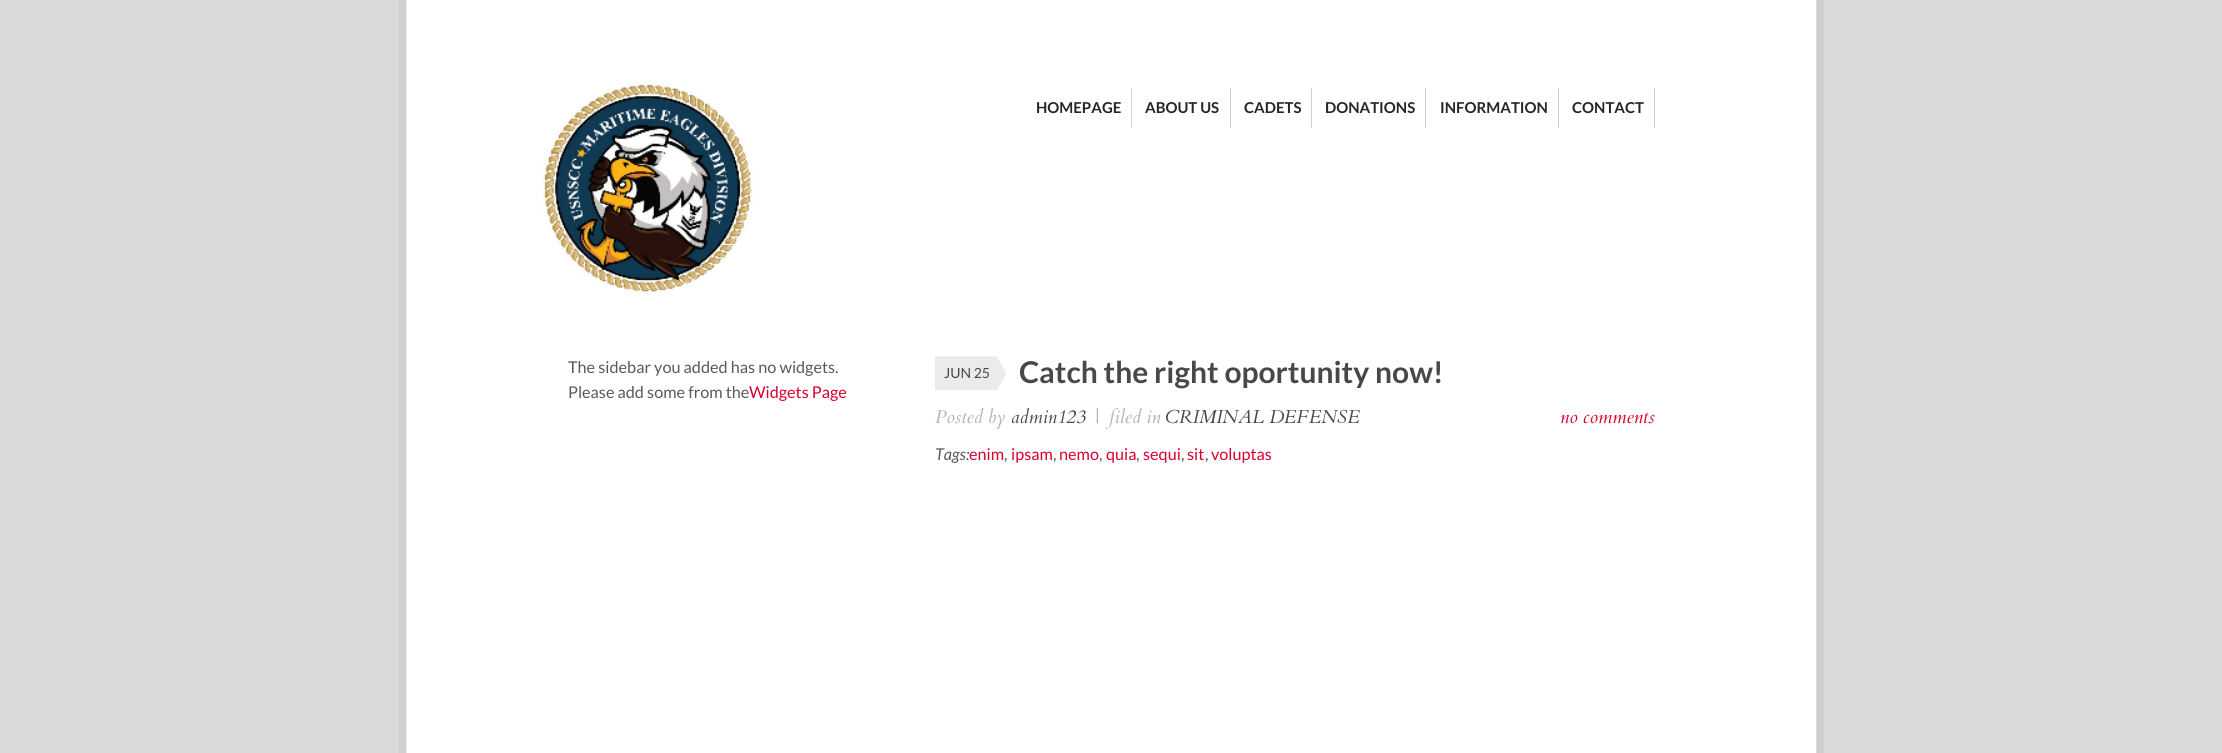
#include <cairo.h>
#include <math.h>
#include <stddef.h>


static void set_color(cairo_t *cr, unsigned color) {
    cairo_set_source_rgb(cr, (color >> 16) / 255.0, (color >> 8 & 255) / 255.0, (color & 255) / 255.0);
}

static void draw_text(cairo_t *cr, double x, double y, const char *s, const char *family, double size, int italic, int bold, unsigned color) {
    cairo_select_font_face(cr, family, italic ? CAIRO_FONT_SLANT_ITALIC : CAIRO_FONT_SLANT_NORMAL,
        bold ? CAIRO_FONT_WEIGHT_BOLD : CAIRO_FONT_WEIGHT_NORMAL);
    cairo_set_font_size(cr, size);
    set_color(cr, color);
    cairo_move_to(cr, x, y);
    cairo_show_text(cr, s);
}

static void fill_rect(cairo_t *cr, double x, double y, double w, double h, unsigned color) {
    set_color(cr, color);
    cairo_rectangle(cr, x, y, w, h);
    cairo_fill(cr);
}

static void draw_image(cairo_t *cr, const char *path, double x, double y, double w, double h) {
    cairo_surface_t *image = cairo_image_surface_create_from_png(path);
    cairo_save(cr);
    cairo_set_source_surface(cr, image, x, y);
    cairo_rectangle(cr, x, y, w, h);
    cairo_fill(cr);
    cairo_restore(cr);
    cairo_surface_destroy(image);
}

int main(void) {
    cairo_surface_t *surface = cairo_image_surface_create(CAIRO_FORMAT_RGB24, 2222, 753);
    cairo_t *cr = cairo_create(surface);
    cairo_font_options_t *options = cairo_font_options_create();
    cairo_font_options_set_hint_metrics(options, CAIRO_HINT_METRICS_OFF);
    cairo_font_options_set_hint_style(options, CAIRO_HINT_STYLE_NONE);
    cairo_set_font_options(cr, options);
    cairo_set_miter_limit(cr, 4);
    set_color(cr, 0xDADADA);
    cairo_paint(cr);
    draw_image(cr, "assets/img1.png", 399, 0, 1425, 753);
    draw_image(cr, "assets/img2.png", 542, 81, 214, 213);
    fill_rect(cr, 1131, 88, 1, 40, 0xD2D2D2);
    draw_text(cr, 1036, 113, "HOMEPAGE", "Lato", 15, 0, 1, 0x262626);
    fill_rect(cr, 1230, 88, 1, 40, 0xD2D2D2);
    draw_text(cr, 1145, 113, "ABOUT US", "Lato", 15, 0, 1, 0x262626);
    fill_rect(cr, 1311, 88, 1, 40, 0xD2D2D2);
    draw_text(cr, 1244, 113, "CADETS", "Lato", 15, 0, 1, 0x262626);
    fill_rect(cr, 1425, 88, 1, 40, 0xD2D2D2);
    draw_text(cr, 1325, 113, "DONATIONS", "Lato", 15, 0, 1, 0x262626);
    fill_rect(cr, 1558, 88, 1, 40, 0xD2D2D2);
    draw_text(cr, 1440, 113, "INFORMATION", "Lato", 15, 0, 1, 0x262626);
    fill_rect(cr, 1654, 88, 1, 40, 0xD2D2D2);
    draw_text(cr, 1572, 113, "CONTACT", "Lato", 15, 0, 1, 0x262626);
    draw_text(cr, 568, 373, "The sidebar you added has no widgets.", "Lato", 16.25, 0, 0, 0x595959);
    draw_text(cr, 568, 398, "Please add some from the", "Lato", 16.25, 0, 0, 0x595959);
    draw_text(cr, 749, 398, "Widgets Page", "Lato", 16.25, 0, 0, 0xD7002E);
    draw_image(cr, "assets/img3.png", 935, 356, 71, 34);
    draw_text(cr, 944, 378, "JUN 25", "Lato", 14, 0, 0, 0x494849);
    draw_text(cr, 1019, 383, "Catch the right oportunity now!", "Lato", 30, 0, 1, 0x494849);
    draw_text(cr, 935, 423, "Posted by", "Cardo", 18.75, 1, 0, 0xB2B2B2);
    draw_text(cr, 1011, 423, "admin123", "Cardo", 18.75, 1, 0, 0x494849);
    draw_text(cr, 1094, 423, "|", "Cardo", 18.75, 1, 0, 0xB2B2B2);
    draw_text(cr, 1109, 423, "filed in", "Cardo", 18.75, 1, 0, 0xB2B2B2);
    draw_text(cr, 1165, 423, "CRIMINAL DEFENSE", "Cardo", 18.75, 1, 0, 0x494849);
    draw_text(cr, 1560, 423, "no comments", "Cardo", 18.75, 1, 0, 0xD7002E);
    draw_text(cr, 935, 460, "Tags:", "Lato", 16.25, 1, 0, 0x595959);
    draw_text(cr, 969, 460, "enim", "Lato", 16.25, 0, 0, 0xD7002E);
    draw_text(cr, 1004, 460, ",", "Lato", 16.25, 0, 0, 0x595959);
    draw_text(cr, 1011, 460, "ipsam", "Lato", 16.25, 0, 0, 0xD7002E);
    draw_text(cr, 1053, 460, ",", "Lato", 16.25, 0, 0, 0x595959);
    draw_text(cr, 1059, 460, "nemo", "Lato", 16.25, 0, 0, 0xD7002E);
    draw_text(cr, 1099, 460, ",", "Lato", 16.25, 0, 0, 0x595959);
    draw_text(cr, 1106, 460, "quia", "Lato", 16.25, 0, 0, 0xD7002E);
    draw_text(cr, 1136, 460, ",", "Lato", 16.25, 0, 0, 0x595959);
    draw_text(cr, 1143, 460, "sequi", "Lato", 16.25, 0, 0, 0xD7002E);
    draw_text(cr, 1181, 460, ",", "Lato", 16.25, 0, 0, 0x595959);
    draw_text(cr, 1187, 460, "sit", "Lato", 16.25, 0, 0, 0xD7002E);
    draw_text(cr, 1205, 460, ",", "Lato", 16.25, 0, 0, 0x595959);
    draw_text(cr, 1211, 460, "voluptas", "Lato", 16.25, 0, 0, 0xD7002E);
    cairo_surface_write_to_png(surface, "output.png");
    cairo_font_options_destroy(options);
    cairo_destroy(cr);
    cairo_surface_destroy(surface);
    return 0;
}
